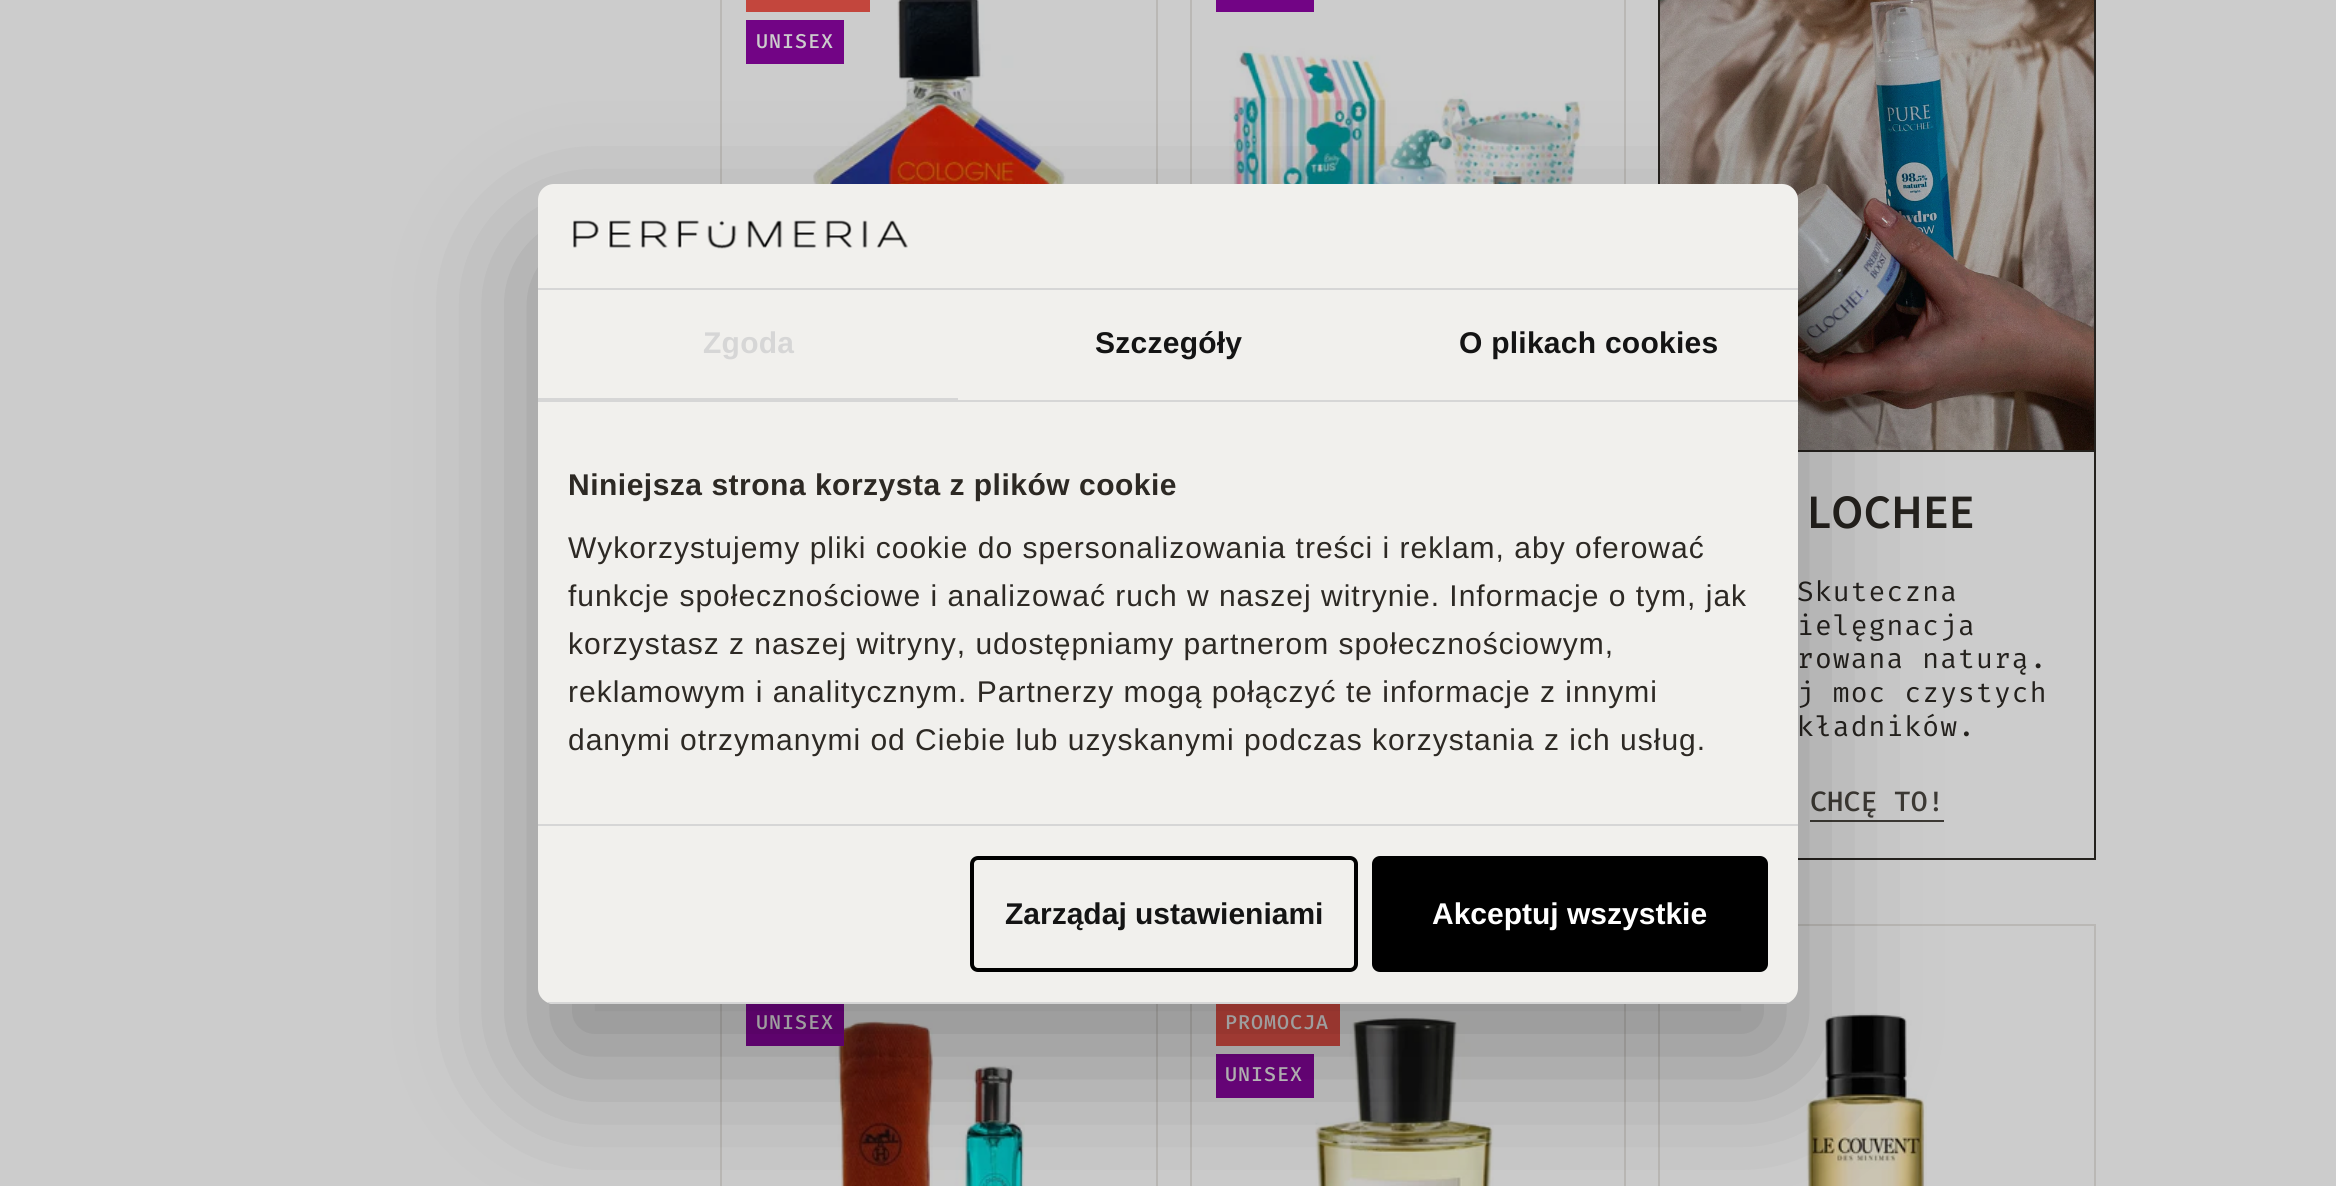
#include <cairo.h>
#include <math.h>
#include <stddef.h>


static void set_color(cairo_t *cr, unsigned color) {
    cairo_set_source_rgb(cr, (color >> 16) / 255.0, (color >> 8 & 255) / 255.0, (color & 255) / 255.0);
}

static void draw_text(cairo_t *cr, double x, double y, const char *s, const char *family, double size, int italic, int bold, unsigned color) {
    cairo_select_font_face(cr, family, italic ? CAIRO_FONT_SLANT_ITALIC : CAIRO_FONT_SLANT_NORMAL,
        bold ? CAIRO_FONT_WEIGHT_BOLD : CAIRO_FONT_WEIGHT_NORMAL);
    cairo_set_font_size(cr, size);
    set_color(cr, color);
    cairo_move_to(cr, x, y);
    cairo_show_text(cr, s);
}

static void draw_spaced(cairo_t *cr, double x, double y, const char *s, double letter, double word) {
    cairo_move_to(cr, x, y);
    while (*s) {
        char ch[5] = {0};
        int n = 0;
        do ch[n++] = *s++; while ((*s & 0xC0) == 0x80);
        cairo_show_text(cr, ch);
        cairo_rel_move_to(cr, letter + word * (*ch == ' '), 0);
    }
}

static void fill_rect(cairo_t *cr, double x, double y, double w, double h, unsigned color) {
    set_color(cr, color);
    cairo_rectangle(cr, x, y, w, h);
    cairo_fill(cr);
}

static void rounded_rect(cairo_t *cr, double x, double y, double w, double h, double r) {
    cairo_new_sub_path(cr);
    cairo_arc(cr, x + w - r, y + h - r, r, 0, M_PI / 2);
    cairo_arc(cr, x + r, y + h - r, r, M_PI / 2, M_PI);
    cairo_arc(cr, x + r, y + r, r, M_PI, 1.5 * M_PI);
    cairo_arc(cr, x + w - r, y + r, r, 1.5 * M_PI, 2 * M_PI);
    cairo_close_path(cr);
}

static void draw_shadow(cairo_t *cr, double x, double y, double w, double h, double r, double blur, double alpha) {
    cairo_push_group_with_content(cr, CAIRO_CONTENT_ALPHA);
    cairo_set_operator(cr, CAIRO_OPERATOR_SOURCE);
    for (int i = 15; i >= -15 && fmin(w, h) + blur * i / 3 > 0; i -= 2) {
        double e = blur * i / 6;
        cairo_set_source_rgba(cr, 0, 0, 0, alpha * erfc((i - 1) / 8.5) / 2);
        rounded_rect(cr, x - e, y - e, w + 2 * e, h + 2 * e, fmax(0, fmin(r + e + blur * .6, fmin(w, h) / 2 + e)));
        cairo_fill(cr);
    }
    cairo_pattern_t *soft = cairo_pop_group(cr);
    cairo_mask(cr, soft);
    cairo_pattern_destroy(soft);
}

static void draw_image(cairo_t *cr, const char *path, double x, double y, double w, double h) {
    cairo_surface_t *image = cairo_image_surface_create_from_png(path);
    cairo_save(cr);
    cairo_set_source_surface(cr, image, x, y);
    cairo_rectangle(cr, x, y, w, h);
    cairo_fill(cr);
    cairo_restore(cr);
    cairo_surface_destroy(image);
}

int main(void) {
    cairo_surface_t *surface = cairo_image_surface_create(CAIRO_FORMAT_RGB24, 2336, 1186);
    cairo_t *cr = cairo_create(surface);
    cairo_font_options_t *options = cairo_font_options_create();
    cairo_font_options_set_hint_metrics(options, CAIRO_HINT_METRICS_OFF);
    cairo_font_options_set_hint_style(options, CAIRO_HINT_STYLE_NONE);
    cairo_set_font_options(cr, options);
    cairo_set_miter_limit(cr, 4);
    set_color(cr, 0xCCCCCC);
    cairo_paint(cr);
    cairo_rectangle(cr, 721, -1, 436, 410);
    set_color(cr, 0xBAB8B5);
    cairo_stroke(cr);
    draw_image(cr, "assets/img1.png", 813, 0, 253, 184);
    fill_rect(cr, 746, 0, 124, 12, 0xC3463D);
    fill_rect(cr, 746, 20, 98, 44, 0x720485);
    cairo_select_font_face(cr, "Fira Mono Medium", CAIRO_FONT_SLANT_NORMAL, CAIRO_FONT_WEIGHT_NORMAL);
    cairo_set_font_size(cr, 20);
    set_color(cr, 0xCCCCCC);
    draw_spaced(cr, 756, 48, "UNISEX", 1, 0);
    cairo_rectangle(cr, 1191, -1, 434, 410);
    set_color(cr, 0xBAB8B5);
    cairo_stroke(cr);
    fill_rect(cr, 1216, 0, 98, 12, 0x720485);
    draw_image(cr, "assets/img2.png", 1229, 46, 356, 138);
    cairo_rectangle(cr, 1659, -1, 436, 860);
    set_color(cr, 0x24211D);
    cairo_stroke(cr);
    fill_rect(cr, 1798, 450, 296, 2, 0x24211D);
    draw_image(cr, "assets/img3.png", 1660, 0, 434, 450);
    draw_text(cr, 1807, 528, "LOCHEE", "Source Sans Pro SemiBold", 48, 0, 0, 0x24211D);
    cairo_select_font_face(cr, "Fira Mono", CAIRO_FONT_SLANT_NORMAL, CAIRO_FONT_WEIGHT_NORMAL);
    cairo_set_font_size(cr, 28);
    draw_spaced(cr, 1797, 601, "Skuteczna", 1.1, 0);
    draw_spaced(cr, 1797, 635, "ielęgnacja", 1.1, 0);
    draw_spaced(cr, 1797, 668, "rowana naturą.", 1.1, 0);
    draw_spaced(cr, 1797, 702, "j moc czystych", 1.1, 0);
    draw_spaced(cr, 1797, 736, "kładników.", 1.1, 0);
    draw_text(cr, 1810, 811, "CHCĘ TO!", "Fira Mono Medium", 28, 0, 0, 0x3C3934);
    fill_rect(cr, 1810, 820, 134, 2, 0x3C3934);
    cairo_rectangle(cr, 721, 925, 436, 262);
    set_color(cr, 0xBAB8B5);
    cairo_stroke(cr);
    draw_image(cr, "assets/img4.png", 835, 1020, 190, 166);
    fill_rect(cr, 746, 1004, 98, 42, 0x720485);
    cairo_set_font_size(cr, 20);
    set_color(cr, 0xCCCCCC);
    draw_spaced(cr, 756, 1029, "UNISEX", 1, 0);
    cairo_rectangle(cr, 1191, 925, 434, 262);
    set_color(cr, 0xBAB8B5);
    cairo_stroke(cr);
    draw_image(cr, "assets/img5.png", 1315, 1015, 179, 171);
    fill_rect(cr, 1216, 1004, 124, 42, 0xC3463D);
    set_color(cr, 0xCCCCCC);
    draw_spaced(cr, 1225, 1029, "PROMOCJA", 1, 0);
    fill_rect(cr, 1216, 1054, 98, 44, 0x720485);
    set_color(cr, 0xCCCCCC);
    draw_spaced(cr, 1225, 1081, "UNISEX", 1, 0);
    cairo_rectangle(cr, 1659, 925, 436, 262);
    set_color(cr, 0xBAB8B5);
    cairo_stroke(cr);
    draw_image(cr, "assets/img6.png", 1806, 1013, 121, 173);
    set_color(cr, 0x000000);
    draw_shadow(cr, 538, 248, 1260, 820, 16, 68, 0.3);
    set_color(cr, 0xF1F0ED);
    rounded_rect(cr, 538, 184, 1260, 820, 16);
    cairo_fill(cr);
    fill_rect(cr, 538, 288, 1260, 2, 0xD6D6D6);
    draw_image(cr, "assets/img7.png", 573, 220, 335, 29);
    fill_rect(cr, 538, 400, 1260, 2, 0xD6D6D6);
    fill_rect(cr, 538, 398, 420, 2, 0xD6D6D6);
    cairo_select_font_face(cr, "Liberation Sans", CAIRO_FONT_SLANT_NORMAL, CAIRO_FONT_WEIGHT_BOLD);
    cairo_set_font_size(cr, 30);
    draw_spaced(cr, 703, 353, "Zgoda", 0.25, 0);
    set_color(cr, 0x141414);
    draw_spaced(cr, 1095, 353, "Szczegóły", 0.25, 0);
    draw_spaced(cr, 1459, 353, "O plikach cookies", 0.25, 0);
    fill_rect(cr, 538, 824, 1260, 2, 0xD6D6D6);
    set_color(cr, 0x2D2924);
    draw_spaced(cr, 568, 495, "Niniejsza strona korzysta z plików cookie", 0.5, 0);
    cairo_select_font_face(cr, "Liberation Sans", CAIRO_FONT_SLANT_NORMAL, CAIRO_FONT_WEIGHT_NORMAL);
    draw_spaced(cr, 568, 558, "Wykorzystujemy pliki cookie do spersonalizowania treści i reklam, aby oferować", 1, 0);
    draw_spaced(cr, 568, 606, "funkcje społecznościowe i analizować ruch w naszej witrynie. Informacje o tym, jak", 1, 0);
    draw_spaced(cr, 568, 654, "korzystasz z naszej witryny, udostępniamy partnerom społecznościowym,", 1, 0);
    draw_spaced(cr, 568, 702, "reklamowym i analitycznym. Partnerzy mogą połączyć te informacje z innymi", 1, 0);
    draw_spaced(cr, 568, 750, "danymi otrzymanymi od Ciebie lub uzyskanymi podczas korzystania z ich usług.", 1, 0);
    cairo_save(cr);
    rounded_rect(cr, 538, 184, 1260, 820, 16);
    cairo_clip(cr);
    fill_rect(cr, 538, 1002, 1260, 2, 0xD6D6D6);
    cairo_restore(cr);
    rounded_rect(cr, 972, 858, 384, 112, 6);
    set_color(cr, 0x000000);
    cairo_set_line_width(cr, 4);
    cairo_stroke(cr);
    draw_text(cr, 1005, 924, "Zarządaj ustawieniami", "Liberation Sans", 30, 0, 1, 0x141414);
    set_color(cr, 0x000000);
    rounded_rect(cr, 1374, 858, 392, 112, 6);
    cairo_fill_preserve(cr);
    cairo_stroke(cr);
    draw_text(cr, 1432, 924, "Akceptuj wszystkie", "Liberation Sans", 30, 0, 1, 0xFFFFFF);
    cairo_surface_write_to_png(surface, "output.png");
    cairo_font_options_destroy(options);
    cairo_destroy(cr);
    cairo_surface_destroy(surface);
    return 0;
}
